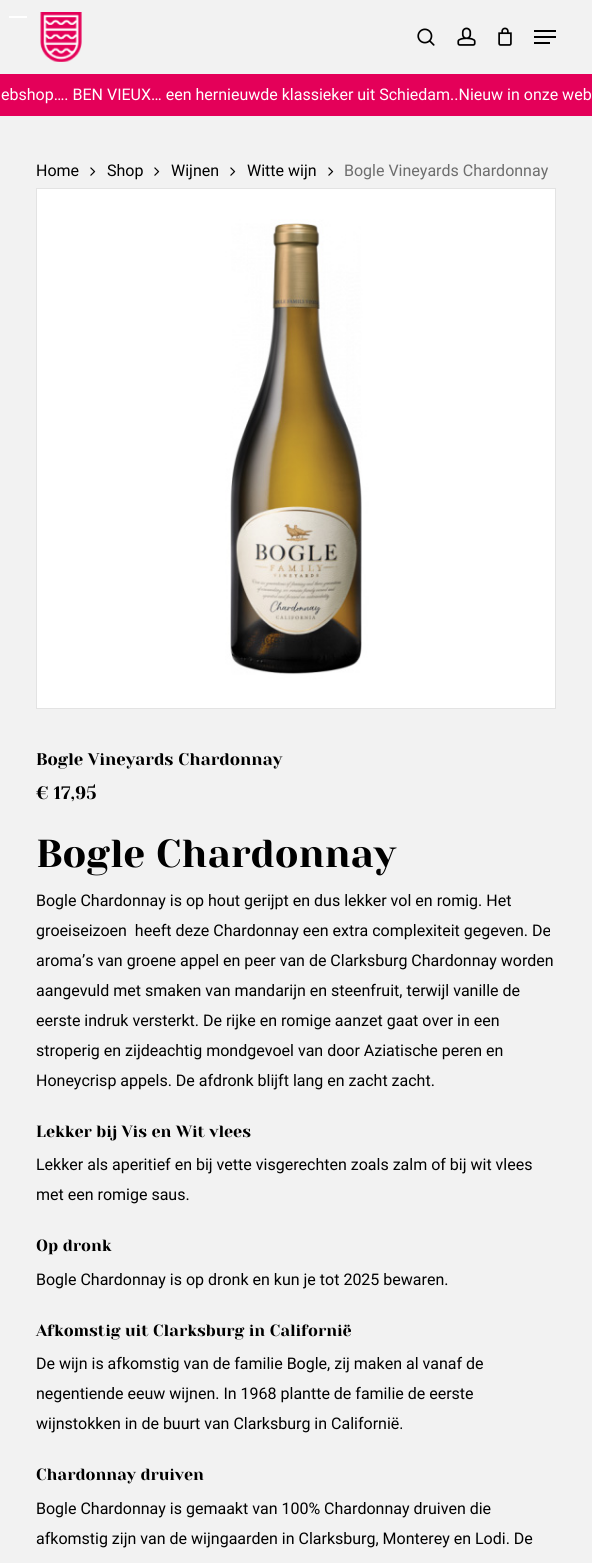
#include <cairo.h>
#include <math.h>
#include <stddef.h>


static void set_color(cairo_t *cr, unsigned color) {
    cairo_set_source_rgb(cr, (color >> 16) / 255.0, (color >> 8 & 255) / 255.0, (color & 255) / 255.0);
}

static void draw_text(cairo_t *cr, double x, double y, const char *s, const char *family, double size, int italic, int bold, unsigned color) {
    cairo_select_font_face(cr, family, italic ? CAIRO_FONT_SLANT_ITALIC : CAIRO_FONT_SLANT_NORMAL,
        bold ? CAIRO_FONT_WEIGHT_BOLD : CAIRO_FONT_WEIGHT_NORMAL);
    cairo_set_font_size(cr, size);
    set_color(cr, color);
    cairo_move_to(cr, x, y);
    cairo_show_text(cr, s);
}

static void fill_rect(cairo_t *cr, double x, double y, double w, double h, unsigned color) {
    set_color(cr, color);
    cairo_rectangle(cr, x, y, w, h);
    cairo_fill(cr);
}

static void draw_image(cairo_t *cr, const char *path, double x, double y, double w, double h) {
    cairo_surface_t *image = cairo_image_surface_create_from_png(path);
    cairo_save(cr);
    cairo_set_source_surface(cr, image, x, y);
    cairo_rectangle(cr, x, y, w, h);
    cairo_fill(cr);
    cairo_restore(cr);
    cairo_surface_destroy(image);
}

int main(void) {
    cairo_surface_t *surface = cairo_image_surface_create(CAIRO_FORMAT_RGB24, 592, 1563);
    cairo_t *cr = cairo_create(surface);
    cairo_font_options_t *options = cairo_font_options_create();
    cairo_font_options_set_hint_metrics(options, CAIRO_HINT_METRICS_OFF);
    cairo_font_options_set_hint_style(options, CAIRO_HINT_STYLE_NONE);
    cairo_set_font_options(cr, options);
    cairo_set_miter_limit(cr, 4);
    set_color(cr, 0xF2F2F2);
    cairo_paint(cr);
    fill_rect(cr, 9, 16, 18, 2, 0xFFFFFF);
    draw_image(cr, "assets/img1.png", 40, 12, 42, 50);
    draw_image(cr, "assets/img2.png", 417, 28, 18, 18);
    draw_image(cr, "assets/img3.png", 457, 27, 19, 19);
    draw_image(cr, "assets/img4.png", 498, 27, 14, 19);
    fill_rect(cr, 534, 30, 22, 2, 0x000000);
    fill_rect(cr, 534, 42, 16, 2, 0x000000);
    fill_rect(cr, 534, 36, 22, 2, 0x000000);
    fill_rect(cr, 0, 74, 592, 42, 0xE40059);
    draw_text(cr, 1, 100, "ebshop…. BEN VIEUX… een hernieuwde klassieker uit Schiedam..Nieuw in onze web", "Roboto", 16, 0, 0, 0xFFFFFF);
    draw_text(cr, 36, 176, "Home", "Roboto", 16, 0, 0, 0x000000);
    draw_image(cr, "assets/img5.png", 90, 167, 6, 9);
    draw_text(cr, 107, 176, "Shop", "Roboto", 16, 0, 0, 0x000000);
    draw_image(cr, "assets/img5.png", 154, 167, 6, 9);
    draw_text(cr, 171, 176, "Wijnen", "Roboto", 16, 0, 0, 0x000000);
    draw_image(cr, "assets/img5.png", 230, 167, 6, 9);
    draw_text(cr, 247, 176, "Witte wijn", "Roboto", 16, 0, 0, 0x000000);
    draw_image(cr, "assets/img5.png", 328, 167, 6, 9);
    draw_text(cr, 344, 176, "Bogle Vineyards Chardonnay", "Roboto", 16, 0, 0, 0x6D6D6D);
    cairo_rectangle(cr, 36.5, 188.5, 519, 520);
    set_color(cr, 0xE3E3E3);
    cairo_set_line_width(cr, 1);
    cairo_stroke(cr);
    draw_image(cr, "assets/img6.png", 37, 189, 518, 519);
    draw_text(cr, 36, 765, "Bogle Vineyards Chardonnay", "Yeseva One", 16.9, 0, 0, 0x000000);
    draw_text(cr, 36, 799, "€ 17,95", "Yeseva One", 18, 0, 0, 0x000000);
    draw_text(cr, 36, 867, "Bogle Chardonnay", "Yeseva One", 39, 0, 0, 0x000000);
    draw_text(cr, 36, 906, "Bogle Chardonnay is op hout gerijpt en dus lekker vol en romig. Het", "Roboto", 16, 0, 0, 0x000000);
    draw_text(cr, 36, 936, "groeiseizoen  heeft deze Chardonnay een extra complexiteit gegeven. De", "Roboto", 16, 0, 0, 0x000000);
    draw_text(cr, 36, 966, "aroma’s van groene appel en peer van de Clarksburg Chardonnay worden", "Roboto", 16, 0, 0, 0x000000);
    draw_text(cr, 36, 996, "aangevuld met smaken van mandarijn en steenfruit, terwijl vanille de", "Roboto", 16, 0, 0, 0x000000);
    draw_text(cr, 36, 1026, "eerste indruk versterkt. De rijke en romige aanzet gaat over in een", "Roboto", 16, 0, 0, 0x000000);
    draw_text(cr, 36, 1056, "stroperig en zijdeachtig mondgevoel van door Aziatische peren en", "Roboto", 16, 0, 0, 0x000000);
    draw_text(cr, 36, 1086, "Honeycrisp appels. De afdronk blijft lang en zacht zacht.", "Roboto", 16, 0, 0, 0x000000);
    draw_text(cr, 36, 1137, "Lekker bij Vis en Wit vlees", "Yeseva One", 16.25, 0, 0, 0x000000);
    draw_text(cr, 36, 1170, "Lekker als aperitief en bij vette visgerechten zoals zalm of bij wit vlees", "Roboto", 16, 0, 0, 0x000000);
    draw_text(cr, 36, 1200, "met een romige saus.", "Roboto", 16, 0, 0, 0x000000);
    draw_text(cr, 36, 1251, "Op dronk", "Yeseva One", 16.25, 0, 0, 0x000000);
    draw_text(cr, 36, 1285, "Bogle Chardonnay is op dronk en kun je tot 2025 bewaren.", "Roboto", 16, 0, 0, 0x000000);
    draw_text(cr, 36, 1336, "Afkomstig uit Clarksburg in Californië", "Yeseva One", 16.25, 0, 0, 0x000000);
    draw_text(cr, 36, 1369, "De wijn is afkomstig van de familie Bogle, zij maken al vanaf de", "Roboto", 16, 0, 0, 0x000000);
    draw_text(cr, 36, 1399, "negentiende eeuw wijnen. In 1968 plantte de familie de eerste", "Roboto", 16, 0, 0, 0x000000);
    draw_text(cr, 36, 1429, "wijnstokken in de buurt van Clarksburg in Californië.", "Roboto", 16, 0, 0, 0x000000);
    draw_text(cr, 36, 1480, "Chardonnay druiven", "Yeseva One", 16.25, 0, 0, 0x000000);
    draw_text(cr, 36, 1514, "Bogle Chardonnay is gemaakt van 100% Chardonnay druiven die", "Roboto", 16, 0, 0, 0x000000);
    draw_text(cr, 36, 1544, "afkomstig zijn van de wijngaarden in Clarksburg, Monterey en Lodi. De", "Roboto", 16, 0, 0, 0x000000);
    cairo_surface_write_to_png(surface, "output.png");
    cairo_font_options_destroy(options);
    cairo_destroy(cr);
    cairo_surface_destroy(surface);
    return 0;
}
